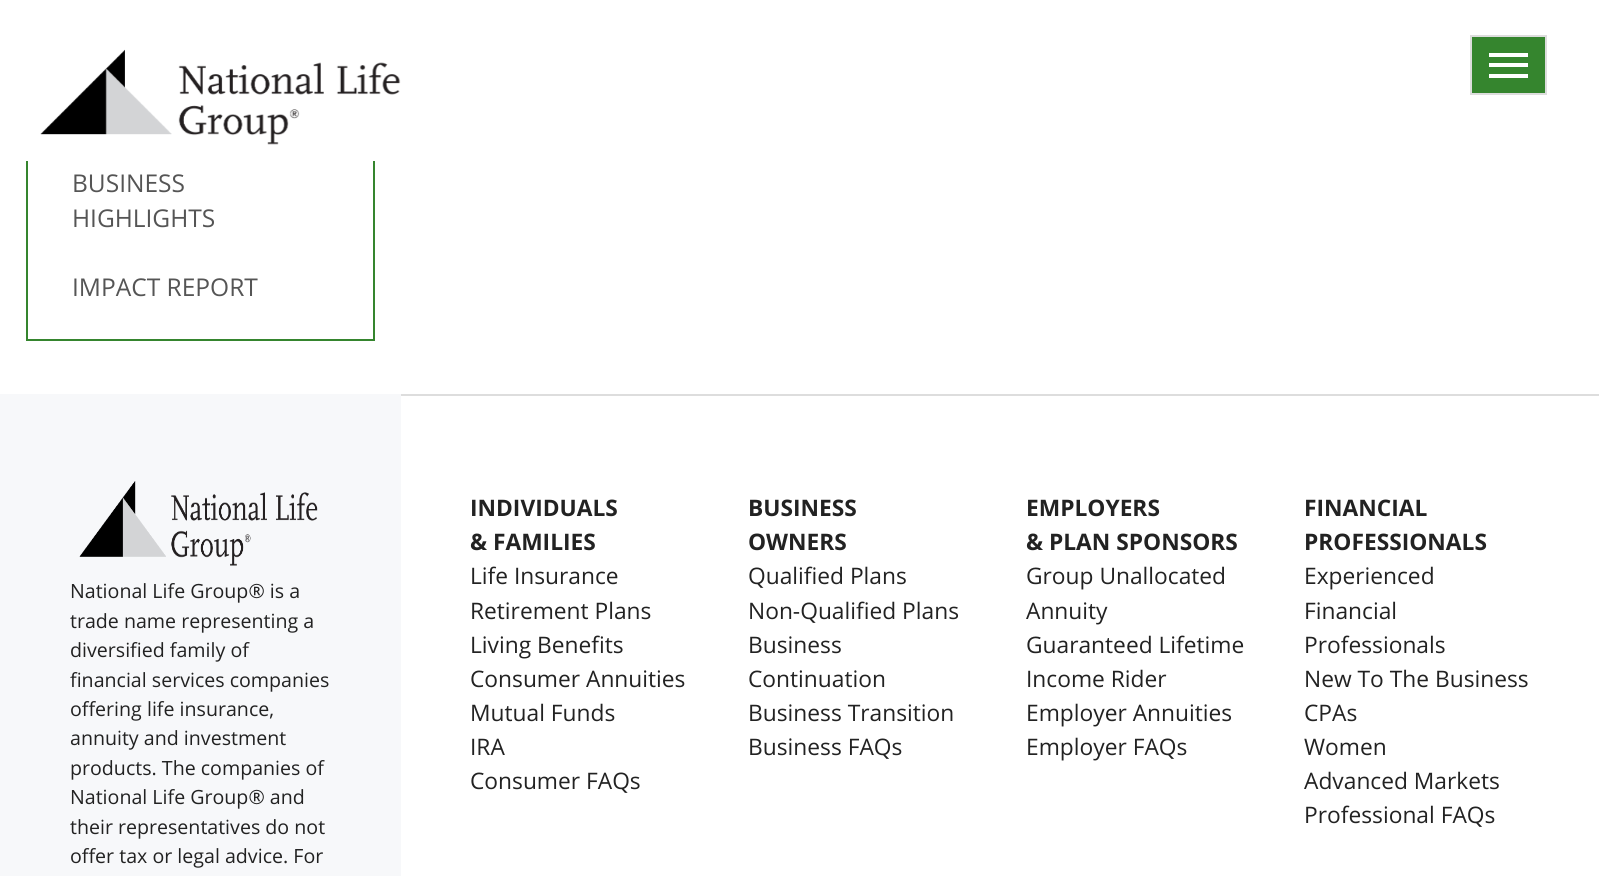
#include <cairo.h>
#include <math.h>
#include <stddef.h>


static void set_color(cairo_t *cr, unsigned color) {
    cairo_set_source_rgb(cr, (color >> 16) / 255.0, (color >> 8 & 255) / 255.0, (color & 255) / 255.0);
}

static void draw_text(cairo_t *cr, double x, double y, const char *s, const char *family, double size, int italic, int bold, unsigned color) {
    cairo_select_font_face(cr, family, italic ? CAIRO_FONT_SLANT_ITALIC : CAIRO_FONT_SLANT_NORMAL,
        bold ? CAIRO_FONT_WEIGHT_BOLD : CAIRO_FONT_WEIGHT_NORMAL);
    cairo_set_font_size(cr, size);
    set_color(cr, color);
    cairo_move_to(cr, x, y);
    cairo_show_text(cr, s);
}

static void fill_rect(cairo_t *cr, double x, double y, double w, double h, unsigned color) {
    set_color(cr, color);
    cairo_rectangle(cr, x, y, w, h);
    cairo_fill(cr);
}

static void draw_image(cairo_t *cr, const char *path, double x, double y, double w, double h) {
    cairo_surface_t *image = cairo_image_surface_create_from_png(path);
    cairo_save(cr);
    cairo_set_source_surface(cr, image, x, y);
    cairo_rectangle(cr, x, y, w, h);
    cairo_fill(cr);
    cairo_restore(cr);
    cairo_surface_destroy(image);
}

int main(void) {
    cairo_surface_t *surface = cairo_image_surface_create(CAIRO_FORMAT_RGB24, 1599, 876);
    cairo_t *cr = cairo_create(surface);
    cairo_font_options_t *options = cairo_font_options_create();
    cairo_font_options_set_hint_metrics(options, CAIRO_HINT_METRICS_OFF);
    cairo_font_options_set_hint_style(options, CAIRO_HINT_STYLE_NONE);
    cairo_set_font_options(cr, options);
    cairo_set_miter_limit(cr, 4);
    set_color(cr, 0xFFFFFF);
    cairo_paint(cr);
    cairo_rectangle(cr, 27, -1, 347, 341);
    set_color(cr, 0x35852E);
    cairo_stroke(cr);
    fill_rect(cr, 26, 0, 349, 161, 0xFFFFFF);
    draw_image(cr, "assets/img1.png", 40, 49, 361, 96);
    set_color(cr, 0x35852E);
    cairo_rectangle(cr, 1471, 36, 75, 58);
    cairo_fill_preserve(cr);
    set_color(cr, 0xDDDDDD);
    cairo_stroke(cr);
    fill_rect(cr, 1489, 53, 39, 4, 0xFFFFFF);
    fill_rect(cr, 1489, 63, 39, 4, 0xFFFFFF);
    fill_rect(cr, 1489, 74, 39, 4, 0xFFFFFF);
    draw_text(cr, 72, 192, "BUSINESS", "Open Sans", 24.5, 0, 0, 0x555555);
    draw_text(cr, 72, 227, "HIGHLIGHTS", "Open Sans", 24.5, 0, 0, 0x555555);
    draw_text(cr, 72, 296, "IMPACT REPORT", "Open Sans", 24.5, 0, 0, 0x555555);
    fill_rect(cr, 0, 394, 401, 482, 0xF7F8FA);
    draw_image(cr, "assets/img2.png", 79, 481, 239, 85);
    draw_text(cr, 70, 598, "National Life Group® is a", "Open Sans", 19.6, 0, 0, 0x222222);
    draw_text(cr, 70, 628, "trade name representing a", "Open Sans", 19.6, 0, 0, 0x222222);
    draw_text(cr, 70, 657, "diversified family of", "Open Sans", 19.6, 0, 0, 0x222222);
    draw_text(cr, 70, 687, "financial services companies", "Open Sans", 19.6, 0, 0, 0x222222);
    draw_text(cr, 70, 716, "offering life insurance,", "Open Sans", 19.6, 0, 0, 0x222222);
    draw_text(cr, 70, 745, "annuity and investment", "Open Sans", 19.6, 0, 0, 0x222222);
    draw_text(cr, 70, 775, "products. The companies of", "Open Sans", 19.6, 0, 0, 0x222222);
    draw_text(cr, 70, 804, "National Life Group® and", "Open Sans", 19.6, 0, 0, 0x222222);
    draw_text(cr, 70, 834, "their representatives do not", "Open Sans", 19.6, 0, 0, 0x222222);
    draw_text(cr, 70, 863, "offer tax or legal advice. For", "Open Sans", 19.6, 0, 0, 0x222222);
    fill_rect(cr, 401, 394, 1198, 2, 0xDDDDDD);
    draw_text(cr, 470, 516, "INDIVIDUALS", "Open Sans", 22.75, 0, 1, 0x222222);
    draw_text(cr, 470, 550, "& FAMILIES", "Open Sans", 22.75, 0, 1, 0x222222);
    draw_text(cr, 470, 584, "Life Insurance", "Open Sans", 22.75, 0, 0, 0x222222);
    draw_text(cr, 470, 619, "Retirement Plans", "Open Sans", 22.75, 0, 0, 0x222222);
    draw_text(cr, 470, 653, "Living Benefits", "Open Sans", 22.75, 0, 0, 0x222222);
    draw_text(cr, 470, 687, "Consumer Annuities", "Open Sans", 22.75, 0, 0, 0x222222);
    draw_text(cr, 470, 721, "Mutual Funds", "Open Sans", 22.75, 0, 0, 0x222222);
    draw_text(cr, 470, 755, "IRA", "Open Sans", 22.75, 0, 0, 0x222222);
    draw_text(cr, 470, 789, "Consumer FAQs", "Open Sans", 22.75, 0, 0, 0x222222);
    draw_text(cr, 748, 516, "BUSINESS", "Open Sans", 22.75, 0, 1, 0x222222);
    draw_text(cr, 748, 550, "OWNERS", "Open Sans", 22.75, 0, 1, 0x222222);
    draw_text(cr, 748, 584, "Qualified Plans", "Open Sans", 22.75, 0, 0, 0x222222);
    draw_text(cr, 748, 619, "Non-Qualified Plans", "Open Sans", 22.75, 0, 0, 0x222222);
    draw_text(cr, 748, 653, "Business", "Open Sans", 22.75, 0, 0, 0x222222);
    draw_text(cr, 748, 687, "Continuation", "Open Sans", 22.75, 0, 0, 0x222222);
    draw_text(cr, 748, 721, "Business Transition", "Open Sans", 22.75, 0, 0, 0x222222);
    draw_text(cr, 748, 755, "Business FAQs", "Open Sans", 22.75, 0, 0, 0x222222);
    draw_text(cr, 1026, 516, "EMPLOYERS", "Open Sans", 22.75, 0, 1, 0x222222);
    draw_text(cr, 1026, 550, "& PLAN SPONSORS", "Open Sans", 22.75, 0, 1, 0x222222);
    draw_text(cr, 1026, 584, "Group Unallocated", "Open Sans", 22.75, 0, 0, 0x222222);
    draw_text(cr, 1026, 619, "Annuity", "Open Sans", 22.75, 0, 0, 0x222222);
    draw_text(cr, 1026, 653, "Guaranteed Lifetime", "Open Sans", 22.75, 0, 0, 0x222222);
    draw_text(cr, 1026, 687, "Income Rider", "Open Sans", 22.75, 0, 0, 0x222222);
    draw_text(cr, 1026, 721, "Employer Annuities", "Open Sans", 22.75, 0, 0, 0x222222);
    draw_text(cr, 1026, 755, "Employer FAQs", "Open Sans", 22.75, 0, 0, 0x222222);
    draw_text(cr, 1304, 516, "FINANCIAL", "Open Sans", 22.75, 0, 1, 0x222222);
    draw_text(cr, 1304, 550, "PROFESSIONALS", "Open Sans", 22.75, 0, 1, 0x222222);
    draw_text(cr, 1304, 584, "Experienced", "Open Sans", 22.75, 0, 0, 0x222222);
    draw_text(cr, 1304, 619, "Financial", "Open Sans", 22.75, 0, 0, 0x222222);
    draw_text(cr, 1304, 653, "Professionals", "Open Sans", 22.75, 0, 0, 0x222222);
    draw_text(cr, 1304, 687, "New To The Business", "Open Sans", 22.75, 0, 0, 0x222222);
    draw_text(cr, 1304, 721, "CPAs", "Open Sans", 22.75, 0, 0, 0x222222);
    draw_text(cr, 1304, 755, "Women", "Open Sans", 22.75, 0, 0, 0x222222);
    draw_text(cr, 1304, 789, "Advanced Markets", "Open Sans", 22.75, 0, 0, 0x222222);
    draw_text(cr, 1304, 823, "Professional FAQs", "Open Sans", 22.75, 0, 0, 0x222222);
    cairo_surface_write_to_png(surface, "output.png");
    cairo_font_options_destroy(options);
    cairo_destroy(cr);
    cairo_surface_destroy(surface);
    return 0;
}
